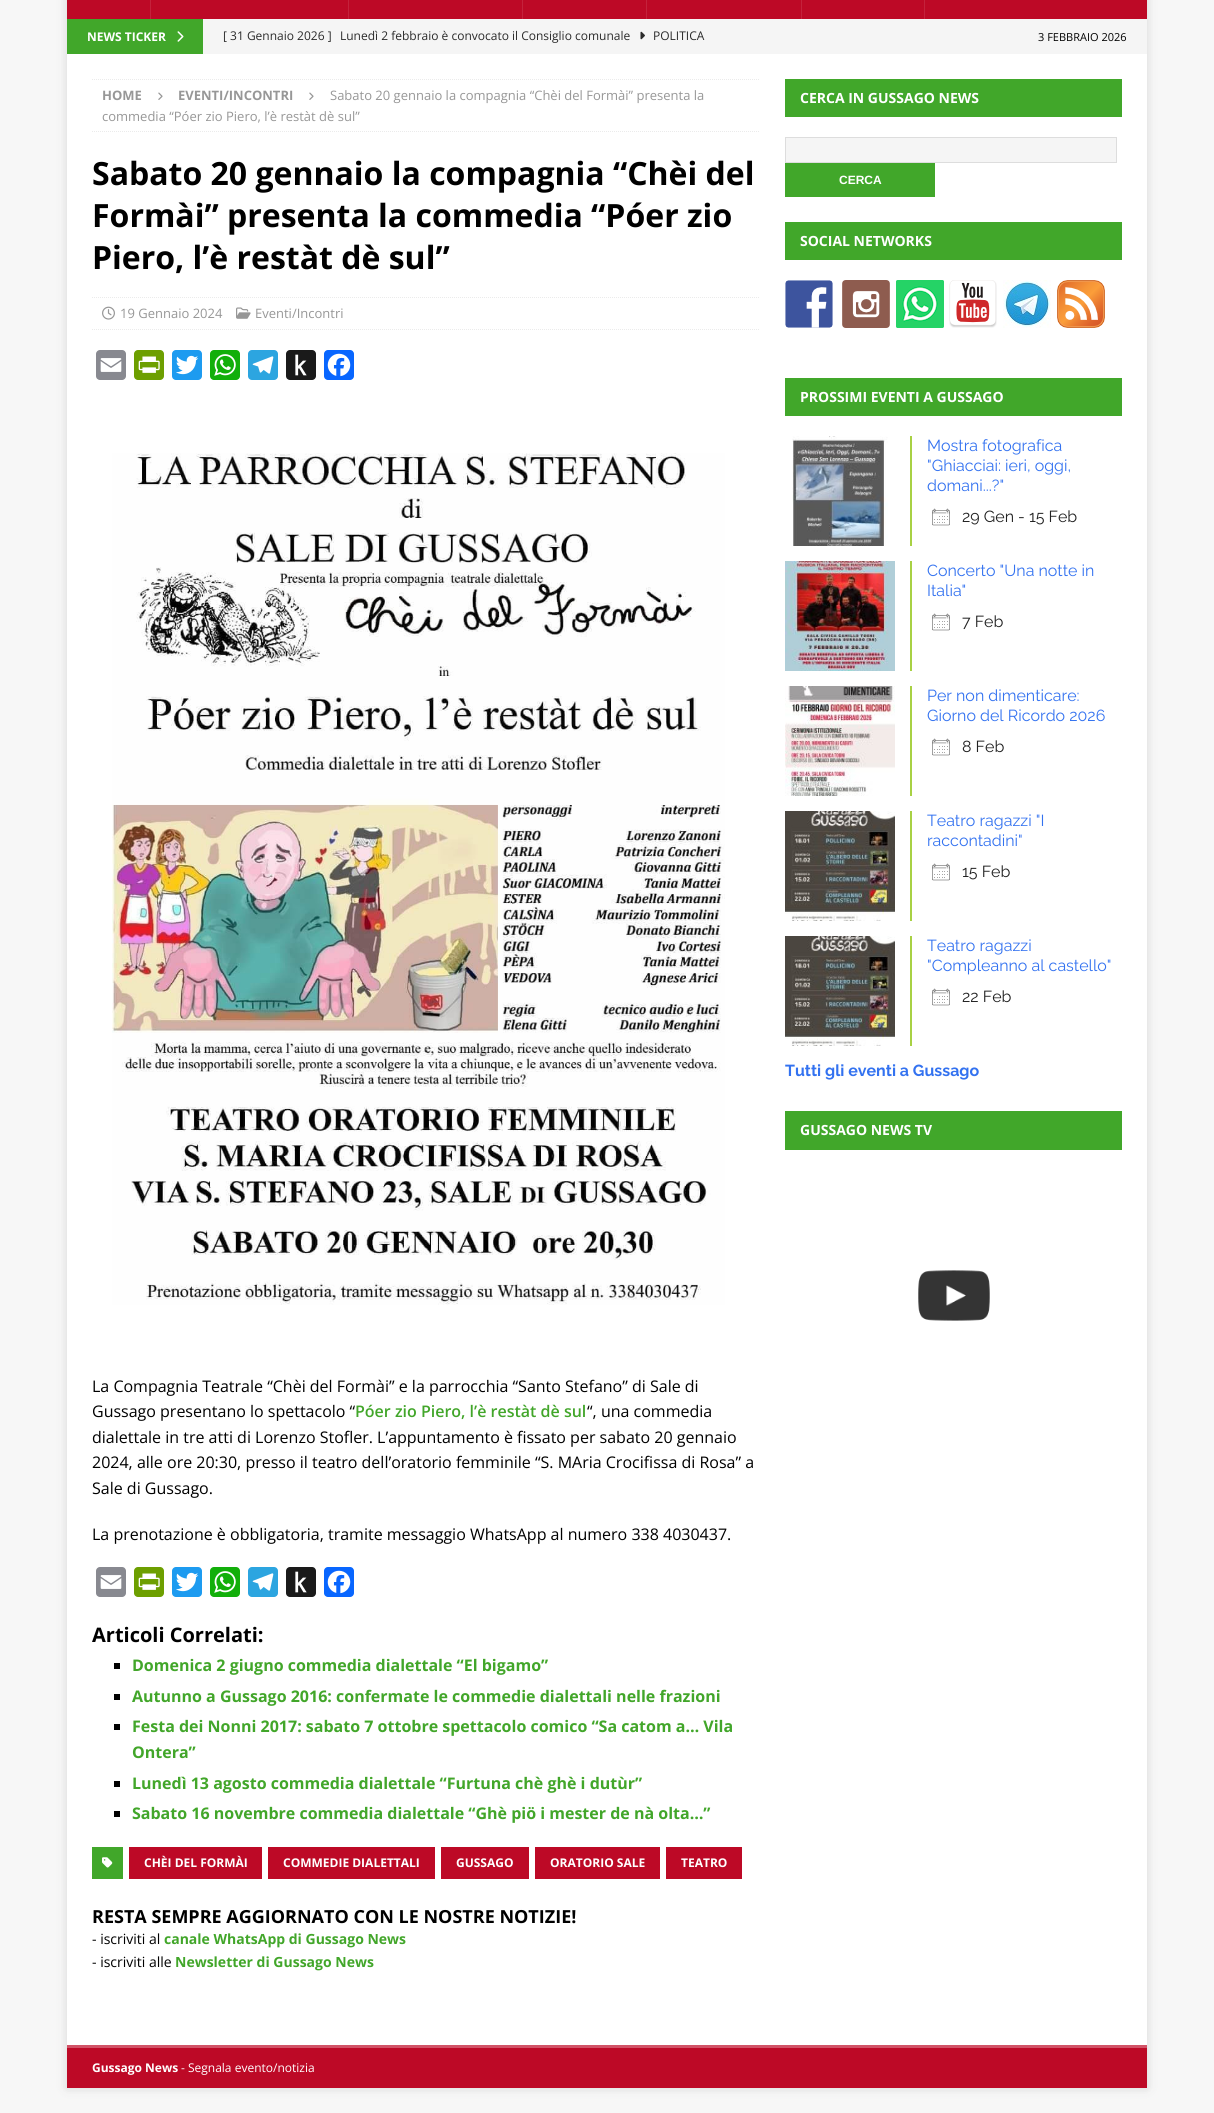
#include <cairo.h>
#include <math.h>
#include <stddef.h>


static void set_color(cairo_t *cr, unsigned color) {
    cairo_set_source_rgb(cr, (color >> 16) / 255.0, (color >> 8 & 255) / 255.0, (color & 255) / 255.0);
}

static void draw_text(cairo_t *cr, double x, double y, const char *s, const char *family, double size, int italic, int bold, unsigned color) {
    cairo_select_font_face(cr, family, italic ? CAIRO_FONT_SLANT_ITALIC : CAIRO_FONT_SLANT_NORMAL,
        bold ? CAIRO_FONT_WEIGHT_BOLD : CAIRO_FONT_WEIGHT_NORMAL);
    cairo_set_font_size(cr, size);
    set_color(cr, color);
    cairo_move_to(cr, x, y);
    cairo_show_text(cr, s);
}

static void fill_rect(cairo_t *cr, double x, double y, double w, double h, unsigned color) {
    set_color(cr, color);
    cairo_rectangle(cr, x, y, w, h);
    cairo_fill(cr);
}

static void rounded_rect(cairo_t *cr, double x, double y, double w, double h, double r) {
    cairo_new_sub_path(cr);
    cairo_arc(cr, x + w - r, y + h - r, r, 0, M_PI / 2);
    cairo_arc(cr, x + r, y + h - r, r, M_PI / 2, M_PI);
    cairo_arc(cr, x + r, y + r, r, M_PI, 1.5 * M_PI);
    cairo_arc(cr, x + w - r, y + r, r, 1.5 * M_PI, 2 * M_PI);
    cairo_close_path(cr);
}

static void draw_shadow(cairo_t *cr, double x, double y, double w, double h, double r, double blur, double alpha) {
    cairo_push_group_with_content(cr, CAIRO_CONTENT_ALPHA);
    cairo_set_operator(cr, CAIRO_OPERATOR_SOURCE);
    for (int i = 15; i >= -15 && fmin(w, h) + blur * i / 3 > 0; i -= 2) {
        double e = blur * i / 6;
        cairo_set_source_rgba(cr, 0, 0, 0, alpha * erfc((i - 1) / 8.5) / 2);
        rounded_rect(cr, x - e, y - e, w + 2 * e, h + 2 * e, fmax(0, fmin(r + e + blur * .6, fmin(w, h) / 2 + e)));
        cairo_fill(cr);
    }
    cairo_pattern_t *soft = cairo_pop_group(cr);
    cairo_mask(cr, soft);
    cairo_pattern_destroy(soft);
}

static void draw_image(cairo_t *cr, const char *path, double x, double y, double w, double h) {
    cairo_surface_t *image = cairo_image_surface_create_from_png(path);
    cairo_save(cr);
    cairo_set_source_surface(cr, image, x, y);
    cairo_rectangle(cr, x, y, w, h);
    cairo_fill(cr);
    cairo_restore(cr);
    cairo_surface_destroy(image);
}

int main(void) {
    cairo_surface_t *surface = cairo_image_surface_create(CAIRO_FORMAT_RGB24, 1214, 2113);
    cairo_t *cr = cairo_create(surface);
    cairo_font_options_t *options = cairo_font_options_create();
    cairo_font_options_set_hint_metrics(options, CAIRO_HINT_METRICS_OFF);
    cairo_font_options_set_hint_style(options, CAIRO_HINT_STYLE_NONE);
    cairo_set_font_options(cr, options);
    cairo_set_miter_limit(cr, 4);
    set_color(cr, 0xF7F7F7);
    cairo_paint(cr);
    set_color(cr, 0x323232);
    draw_shadow(cr, 67, -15, 1080, 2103, 0, 5, 0.17);
    fill_rect(cr, 67, 0, 1080, 19, 0xBD0926);
    fill_rect(cr, 150, 0, 1, 19, 0xC4223C);
    fill_rect(cr, 348, 0, 1, 19, 0xC4223C);
    fill_rect(cr, 522, 0, 1, 19, 0xC4223C);
    fill_rect(cr, 646, 0, 1, 19, 0xC4223C);
    fill_rect(cr, 801, 0, 1, 19, 0xC4223C);
    fill_rect(cr, 924, 0, 1, 19, 0xC4223C);
    fill_rect(cr, 203, 19, 944, 35, 0xF5F5F5);
    fill_rect(cr, 67, 19, 136, 35, 0x41A72A);
    draw_text(cr, 87, 41, "NEWS TICKER", "Open Sans", 12, 0, 1, 0xFFFFFF);
    draw_image(cr, "assets/img1.png", 177, 31, 7, 11);
    draw_text(cr, 223, 40, "[ 31 Gennaio 2026 ]", "Open Sans", 12, 0, 0, 0x2A2A2A);
    draw_text(cr, 340, 40, "Lunedì 2 febbraio è convocato il Consiglio comunale", "Open Sans", 12, 0, 0, 0x2A2A2A);
    draw_image(cr, "assets/img2.png", 640, 31, 5, 9);
    draw_text(cr, 653, 40, "POLITICA", "Open Sans", 12, 0, 0, 0x2A2A2A);
    draw_text(cr, 1038, 41, "3 FEBBRAIO 2026", "Open Sans", 11, 0, 0, 0x000000);
    fill_rect(cr, 67, 54, 1080, 1991, 0xFFFFFF);
    cairo_new_path(cr);
    cairo_move_to(cr, 92, 79.5);
    cairo_line_to(cr, 760, 79.5);
    set_color(cr, 0xEBEBEB);
    cairo_set_line_width(cr, 1);
    cairo_set_dash(cr, (double[]){1, 1}, 2, 0);
    cairo_stroke(cr);
    cairo_new_path(cr);
    cairo_move_to(cr, 92, 131.5);
    cairo_line_to(cr, 760, 131.5);
    cairo_stroke(cr);
    draw_text(cr, 102, 100, "HOME", "Open Sans", 13, 0, 1, 0x979797);
    draw_image(cr, "assets/img3.png", 158, 92, 5, 8);
    draw_text(cr, 178, 100, "EVENTI/INCONTRI", "Open Sans", 13, 0, 1, 0x979797);
    draw_image(cr, "assets/img3.png", 309, 92, 5, 8);
    draw_text(cr, 330, 100, "Sabato 20 gennaio la compagnia “Chèi del Formài” presenta la", "Open Sans", 13, 0, 0, 0x979797);
    draw_text(cr, 102, 121, "commedia “Póer zio Piero, l’è restàt dè sul”", "Open Sans", 13, 0, 0, 0x979797);
    draw_text(cr, 92, 185, "Sabato 20 gennaio la compagnia “Chèi del", "Open Sans", 32, 0, 1, 0x000000);
    draw_text(cr, 92, 227, "Formài” presenta la commedia “Póer zio", "Open Sans", 32, 0, 1, 0x000000);
    draw_text(cr, 92, 269, "Piero, l’è restàt dè sul”", "Open Sans", 32, 0, 1, 0x000000);
    cairo_new_path(cr);
    cairo_move_to(cr, 92, 297.5);
    cairo_line_to(cr, 760, 297.5);
    set_color(cr, 0xEBEBEB);
    cairo_stroke(cr);
    cairo_new_path(cr);
    cairo_move_to(cr, 92, 329.5);
    cairo_line_to(cr, 760, 329.5);
    cairo_stroke(cr);
    draw_image(cr, "assets/img4.png", 102, 306, 13, 14);
    draw_text(cr, 120, 318, "19 Gennaio 2024", "Open Sans", 13, 0, 0, 0x979797);
    draw_image(cr, "assets/img5.png", 236, 307, 15, 12);
    draw_text(cr, 255, 318, "Eventi/Incontri", "Open Sans", 13, 0, 0, 0x979797);
    set_color(cr, 0x888990);
    rounded_rect(cr, 96, 350, 30, 30, 4);
    cairo_fill(cr);
    draw_image(cr, "assets/img6.png", 100, 358, 22, 14);
    set_color(cr, 0x6D9F00);
    rounded_rect(cr, 134, 350, 30, 30, 4);
    cairo_fill(cr);
    draw_image(cr, "assets/img7.png", 138, 356, 22, 17);
    set_color(cr, 0x1D9BF0);
    rounded_rect(cr, 172, 350, 30, 30, 4);
    cairo_fill(cr);
    draw_image(cr, "assets/img8.png", 176, 355, 23, 20);
    set_color(cr, 0x12AF0A);
    rounded_rect(cr, 210, 350, 30, 30, 4);
    cairo_fill(cr);
    draw_image(cr, "assets/img9.png", 214, 354, 22, 22);
    set_color(cr, 0x2CA5E0);
    rounded_rect(cr, 248, 350, 30, 30, 4);
    cairo_fill(cr);
    draw_image(cr, "assets/img10.png", 252, 356, 22, 18);
    set_color(cr, 0x1A1A1A);
    rounded_rect(cr, 286, 350, 30, 30, 4);
    cairo_fill(cr);
    draw_image(cr, "assets/img11.png", 295, 354, 12, 22);
    set_color(cr, 0x0866FF);
    rounded_rect(cr, 324, 350, 30, 30, 4);
    cairo_fill(cr);
    draw_image(cr, "assets/img12.png", 327, 353, 24, 24);
    draw_image(cr, "assets/img13.png", 112, 453, 613, 852);
    draw_text(cr, 92, 1392, "La Compagnia Teatrale “Chèi del Formài” e la parrocchia “Santo Stefano” di Sale di", "Open Sans", 16, 0, 0, 0x000000);
    draw_text(cr, 92, 1417, "Gussago presentano lo spettacolo “", "Open Sans", 16, 0, 0, 0x000000);
    draw_text(cr, 355, 1417, "Póer zio Piero, l’è restàt dè sul", "Open Sans SemiBold", 16, 0, 0, 0x42A62A);
    draw_text(cr, 587, 1417, "“, una commedia", "Open Sans", 16, 0, 0, 0x000000);
    draw_text(cr, 92, 1443, "dialettale in tre atti di Lorenzo Stofler. L’appuntamento è fissato per sabato 20 gennaio", "Open Sans", 16, 0, 0, 0x000000);
    draw_text(cr, 92, 1468, "2024, alle ore 20:30, presso il teatro dell’oratorio femminile “S. MAria Crocifissa di Rosa” a", "Open Sans", 16, 0, 0, 0x000000);
    draw_text(cr, 92, 1494, "Sale di Gussago.", "Open Sans", 16, 0, 0, 0x000000);
    draw_text(cr, 92, 1540, "La prenotazione è obbligatoria, tramite messaggio WhatsApp al numero 338 4030437.", "Open Sans", 16, 0, 0, 0x000000);
    set_color(cr, 0x888990);
    rounded_rect(cr, 96, 1567, 30, 30, 4);
    cairo_fill(cr);
    draw_image(cr, "assets/img6.png", 100, 1575, 22, 14);
    set_color(cr, 0x6D9F00);
    rounded_rect(cr, 134, 1567, 30, 30, 4);
    cairo_fill(cr);
    draw_image(cr, "assets/img7.png", 138, 1573, 22, 17);
    set_color(cr, 0x1D9BF0);
    rounded_rect(cr, 172, 1567, 30, 30, 4);
    cairo_fill(cr);
    draw_image(cr, "assets/img8.png", 176, 1572, 23, 20);
    set_color(cr, 0x12AF0A);
    rounded_rect(cr, 210, 1567, 30, 30, 4);
    cairo_fill(cr);
    draw_image(cr, "assets/img9.png", 214, 1571, 22, 22);
    set_color(cr, 0x2CA5E0);
    rounded_rect(cr, 248, 1567, 30, 30, 4);
    cairo_fill(cr);
    draw_image(cr, "assets/img10.png", 252, 1573, 22, 18);
    set_color(cr, 0x1A1A1A);
    rounded_rect(cr, 286, 1567, 30, 30, 4);
    cairo_fill(cr);
    draw_image(cr, "assets/img11.png", 295, 1571, 12, 22);
    set_color(cr, 0x0866FF);
    rounded_rect(cr, 324, 1567, 30, 30, 4);
    cairo_fill(cr);
    draw_image(cr, "assets/img12.png", 327, 1570, 24, 24);
    draw_text(cr, 92, 1642, "Articoli Correlati:", "Open Sans", 20, 0, 1, 0x000000);
    fill_rect(cr, 114, 1663, 6, 6, 0x000000);
    draw_text(cr, 132, 1671, "Domenica 2 giugno commedia dialettale “El bigamo”", "Open Sans", 16, 0, 1, 0x42A62A);
    fill_rect(cr, 114, 1694, 6, 6, 0x000000);
    draw_text(cr, 132, 1702, "Autunno a Gussago 2016: confermate le commedie dialettali nelle frazioni", "Open Sans", 16, 0, 1, 0x42A62A);
    fill_rect(cr, 114, 1724, 6, 6, 0x000000);
    draw_text(cr, 132, 1732, "Festa dei Nonni 2017: sabato 7 ottobre spettacolo comico “Sa catom a… Vila", "Open Sans", 16, 0, 1, 0x42A62A);
    draw_text(cr, 132, 1758, "Ontera”", "Open Sans", 16, 0, 1, 0x42A62A);
    fill_rect(cr, 114, 1781, 6, 6, 0x000000);
    draw_text(cr, 132, 1789, "Lunedì 13 agosto commedia dialettale “Furtuna chè ghè i dutùr”", "Open Sans", 16, 0, 1, 0x42A62A);
    fill_rect(cr, 114, 1811, 6, 6, 0x000000);
    draw_text(cr, 132, 1819, "Sabato 16 novembre commedia dialettale “Ghè piö i mester de nà olta…”", "Open Sans", 16, 0, 1, 0x42A62A);
    fill_rect(cr, 92, 1847, 31, 32, 0x41A72A);
    draw_image(cr, "assets/img14.png", 102, 1857, 11, 11);
    fill_rect(cr, 129, 1847, 133, 32, 0xBD0926);
    draw_text(cr, 144, 1867, "CHÈI DEL FORMÀI", "Open Sans", 12, 0, 1, 0xFFFFFF);
    fill_rect(cr, 268, 1847, 167, 32, 0xBD0926);
    draw_text(cr, 283, 1867, "COMMEDIE DIALETTALI", "Open Sans", 12, 0, 1, 0xFFFFFF);
    fill_rect(cr, 441, 1847, 88, 32, 0xBD0926);
    draw_text(cr, 456, 1867, "GUSSAGO", "Open Sans", 12, 0, 1, 0xFFFFFF);
    fill_rect(cr, 535, 1847, 125, 32, 0xBD0926);
    draw_text(cr, 550, 1867, "ORATORIO SALE", "Open Sans", 12, 0, 1, 0xFFFFFF);
    fill_rect(cr, 666, 1847, 76, 32, 0xBD0926);
    draw_text(cr, 681, 1867, "TEATRO", "Open Sans", 12, 0, 1, 0xFFFFFF);
    draw_text(cr, 92, 1923, "RESTA SEMPRE AGGIORNATO CON LE NOSTRE NOTIZIE!", "Open Sans", 18, 0, 1, 0x000000);
    draw_text(cr, 92, 1944, "- iscriviti al", "Open Sans", 14, 0, 0, 0x000000);
    draw_text(cr, 164, 1944, "canale WhatsApp di Gussago News", "Open Sans", 14, 0, 1, 0x42A62A);
    draw_text(cr, 92, 1967, "- iscriviti alle", "Open Sans", 14, 0, 0, 0x000000);
    draw_text(cr, 175, 1967, "Newsletter di Gussago News", "Open Sans", 14, 0, 1, 0x42A62A);
    fill_rect(cr, 785, 79, 337, 38, 0x41A72A);
    draw_text(cr, 800, 103, "CERCA IN GUSSAGO NEWS", "Open Sans", 14, 0, 1, 0xFFFFFF);
    set_color(cr, 0xF5F5F5);
    cairo_rectangle(cr, 785.5, 137.5, 331, 25);
    cairo_fill_preserve(cr);
    set_color(cr, 0xDDDDDD);
    cairo_set_dash(cr, NULL, 0, 0);
    cairo_stroke(cr);
    fill_rect(cr, 785, 163, 150, 34, 0x41A72A);
    draw_text(cr, 839, 184, "CERCA", "Liberation Sans", 12, 0, 1, 0xFFFFFF);
    fill_rect(cr, 785, 222, 337, 38, 0x41A72A);
    draw_text(cr, 800, 246, "SOCIAL NETWORKS", "Open Sans", 14, 0, 1, 0xFFFFFF);
    draw_image(cr, "assets/img15.png", 785, 280, 48, 48);
    draw_image(cr, "assets/img16.png", 842, 280, 48, 48);
    draw_image(cr, "assets/img17.png", 896, 280, 48, 48);
    draw_image(cr, "assets/img18.png", 949, 280, 48, 48);
    draw_image(cr, "assets/img19.png", 1003, 280, 48, 48);
    draw_image(cr, "assets/img20.png", 1057, 280, 48, 48);
    fill_rect(cr, 785, 378, 337, 38, 0x41A72A);
    draw_text(cr, 800, 402, "PROSSIMI EVENTI A GUSSAGO", "Open Sans", 14, 0, 1, 0xFFFFFF);
    draw_image(cr, "assets/img21.png", 792, 436, 96, 110);
    fill_rect(cr, 910, 436, 2, 110, 0xA8D144);
    draw_text(cr, 927, 451, "Mostra fotografica", "Raleway", 16, 0, 0, 0x3372F0);
    draw_text(cr, 927, 471, "\"Ghiacciai: ieri, oggi,", "Raleway", 16, 0, 0, 0x3372F0);
    draw_text(cr, 927, 491, "domani...?\"", "Raleway", 16, 0, 0, 0x3372F0);
    draw_image(cr, "assets/img22.png", 932, 508, 18, 18);
    draw_text(cr, 962, 522, "29 Gen - 15 Feb", "Raleway", 16, 0, 0, 0x212121);
    draw_image(cr, "assets/img23.png", 785, 561, 110, 110);
    fill_rect(cr, 910, 561, 2, 110, 0xA8D144);
    draw_text(cr, 927, 576, "Concerto \"Una notte in", "Raleway", 16, 0, 0, 0x3372F0);
    draw_text(cr, 927, 596, "Italia\"", "Raleway", 16, 0, 0, 0x3372F0);
    draw_image(cr, "assets/img22.png", 932, 613, 18, 18);
    draw_text(cr, 962, 627, "7 Feb", "Raleway", 16, 0, 0, 0x212121);
    draw_image(cr, "assets/img24.png", 785, 686, 110, 110);
    fill_rect(cr, 910, 686, 2, 110, 0xA8D144);
    draw_text(cr, 927, 701, "Per non dimenticare:", "Raleway", 16, 0, 0, 0x3372F0);
    draw_text(cr, 927, 721, "Giorno del Ricordo 2026", "Raleway", 16, 0, 0, 0x3372F0);
    draw_image(cr, "assets/img22.png", 932, 738, 18, 18);
    draw_text(cr, 962, 752, "8 Feb", "Raleway", 16, 0, 0, 0x212121);
    draw_image(cr, "assets/img25.png", 785, 811, 110, 110);
    fill_rect(cr, 910, 811, 2, 110, 0xA8D144);
    draw_text(cr, 927, 826, "Teatro ragazzi \"I", "Raleway", 16, 0, 0, 0x3372F0);
    draw_text(cr, 927, 846, "raccontadini\"", "Raleway", 16, 0, 0, 0x3372F0);
    draw_image(cr, "assets/img22.png", 932, 863, 18, 18);
    draw_text(cr, 962, 877, "15 Feb", "Raleway", 16, 0, 0, 0x212121);
    draw_image(cr, "assets/img25.png", 785, 936, 110, 110);
    fill_rect(cr, 910, 936, 2, 110, 0xA8D144);
    draw_text(cr, 927, 951, "Teatro ragazzi", "Raleway", 16, 0, 0, 0x3372F0);
    draw_text(cr, 927, 971, "\"Compleanno al castello\"", "Raleway", 16, 0, 0, 0x3372F0);
    draw_image(cr, "assets/img22.png", 932, 988, 18, 18);
    draw_text(cr, 962, 1002, "22 Feb", "Raleway", 16, 0, 0, 0x212121);
    draw_text(cr, 785, 1076, "Tutti gli eventi a Gussago", "Raleway", 16, 0, 1, 0x3372F0);
    fill_rect(cr, 785, 1111, 337, 39, 0x41A72A);
    draw_text(cr, 800, 1135, "GUSSAGO NEWS TV", "Open Sans", 14, 0, 1, 0xFFFFFF);
    draw_image(cr, "assets/img26.png", 918, 1270, 72, 51);
    fill_rect(cr, 67, 2048, 1080, 40, 0xBD0926);
    fill_rect(cr, 67, 2045, 1080, 3, 0xD15367);
    draw_text(cr, 92, 2072, "Gussago News", "Open Sans", 12, 0, 1, 0xFFFFFF);
    draw_text(cr, 181, 2072, "- Segnala evento/notizia", "Open Sans", 12, 0, 0, 0xFFFFFF);
    cairo_surface_write_to_png(surface, "output.png");
    cairo_font_options_destroy(options);
    cairo_destroy(cr);
    cairo_surface_destroy(surface);
    return 0;
}
